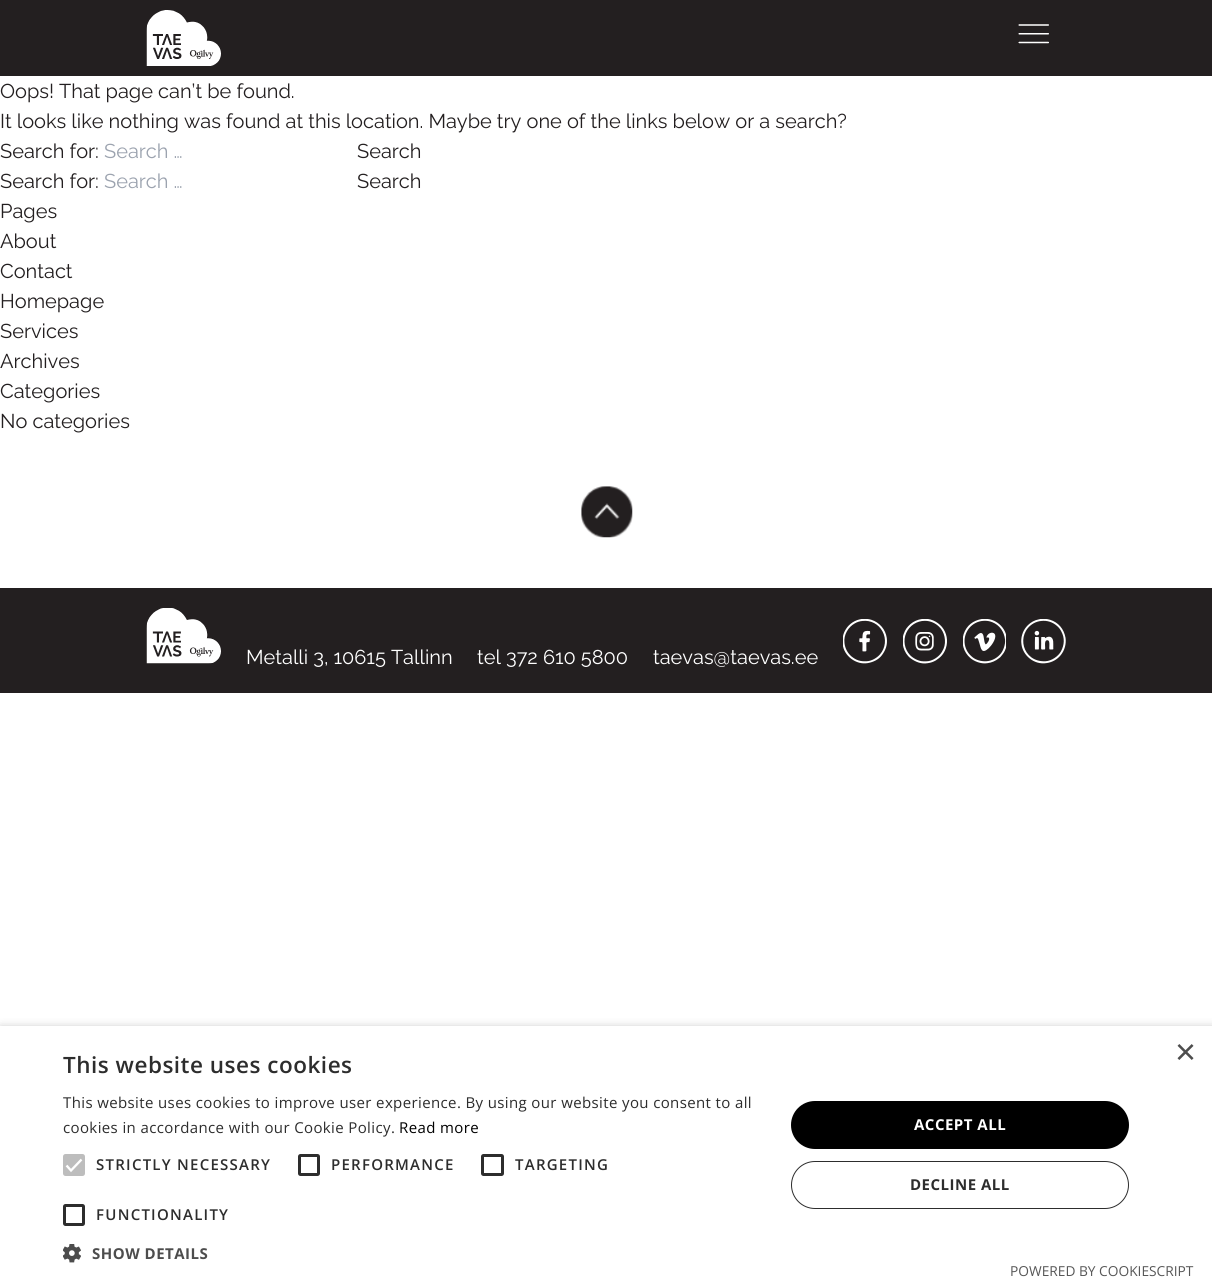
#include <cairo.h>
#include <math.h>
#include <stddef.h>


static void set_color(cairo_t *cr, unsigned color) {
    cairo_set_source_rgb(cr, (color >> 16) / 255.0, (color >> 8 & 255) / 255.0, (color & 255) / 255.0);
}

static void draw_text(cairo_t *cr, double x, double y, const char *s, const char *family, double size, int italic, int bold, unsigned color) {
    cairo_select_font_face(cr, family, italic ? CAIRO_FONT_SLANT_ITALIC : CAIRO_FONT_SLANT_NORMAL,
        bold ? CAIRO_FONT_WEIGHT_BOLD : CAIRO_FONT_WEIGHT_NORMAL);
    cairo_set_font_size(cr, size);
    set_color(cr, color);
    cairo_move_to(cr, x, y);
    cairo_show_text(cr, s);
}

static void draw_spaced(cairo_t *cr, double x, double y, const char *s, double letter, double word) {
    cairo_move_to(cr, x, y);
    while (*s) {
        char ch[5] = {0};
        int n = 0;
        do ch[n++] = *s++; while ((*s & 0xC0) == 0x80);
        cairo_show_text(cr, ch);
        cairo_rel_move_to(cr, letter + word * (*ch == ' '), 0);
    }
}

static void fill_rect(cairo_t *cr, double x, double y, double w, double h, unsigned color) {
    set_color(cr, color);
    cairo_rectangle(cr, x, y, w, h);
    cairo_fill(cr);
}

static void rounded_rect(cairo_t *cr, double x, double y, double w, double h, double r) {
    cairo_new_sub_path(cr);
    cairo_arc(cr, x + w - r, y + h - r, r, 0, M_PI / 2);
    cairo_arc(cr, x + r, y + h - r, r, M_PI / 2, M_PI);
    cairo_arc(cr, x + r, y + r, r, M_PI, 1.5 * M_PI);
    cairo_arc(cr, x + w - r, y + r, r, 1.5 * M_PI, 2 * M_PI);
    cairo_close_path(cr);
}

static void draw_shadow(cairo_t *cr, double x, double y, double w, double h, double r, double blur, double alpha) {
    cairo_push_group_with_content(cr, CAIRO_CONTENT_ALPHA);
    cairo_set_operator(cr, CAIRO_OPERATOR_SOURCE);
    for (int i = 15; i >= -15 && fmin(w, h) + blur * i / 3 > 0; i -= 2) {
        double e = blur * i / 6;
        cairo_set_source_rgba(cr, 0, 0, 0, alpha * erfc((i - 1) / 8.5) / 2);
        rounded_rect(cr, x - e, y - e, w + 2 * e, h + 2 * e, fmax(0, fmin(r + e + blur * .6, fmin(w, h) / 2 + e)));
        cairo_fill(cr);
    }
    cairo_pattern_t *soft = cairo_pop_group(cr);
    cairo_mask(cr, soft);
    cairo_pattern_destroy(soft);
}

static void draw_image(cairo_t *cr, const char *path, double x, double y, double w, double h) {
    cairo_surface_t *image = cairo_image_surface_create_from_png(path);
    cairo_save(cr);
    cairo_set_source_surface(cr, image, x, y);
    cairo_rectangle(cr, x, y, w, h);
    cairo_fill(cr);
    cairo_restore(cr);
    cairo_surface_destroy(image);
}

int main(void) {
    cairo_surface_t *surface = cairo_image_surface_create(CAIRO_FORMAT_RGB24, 1212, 1283);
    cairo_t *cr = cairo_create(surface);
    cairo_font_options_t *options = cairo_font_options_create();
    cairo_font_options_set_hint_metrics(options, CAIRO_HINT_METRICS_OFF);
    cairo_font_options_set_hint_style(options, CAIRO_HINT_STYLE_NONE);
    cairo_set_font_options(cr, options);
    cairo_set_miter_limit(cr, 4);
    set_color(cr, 0xFFFFFF);
    cairo_paint(cr);
    fill_rect(cr, 0, 0, 1212, 76, 0x231F20);
    draw_image(cr, "assets/img1.png", 146, 10, 75, 56);
    draw_image(cr, "assets/img2.png", 1018, 24, 31, 20);
    draw_text(cr, 0, 98, "Oops! That page can’t be found.", "Raleway", 20, 0, 0, 0x231F20);
    draw_text(cr, 0, 128, "It looks like nothing was found at this location. Maybe try one of the links below or a search?", "Raleway", 20, 0, 0, 0x231F20);
    draw_text(cr, 0, 158, "Search for:", "Raleway", 20, 0, 0, 0x231F20);
    draw_text(cr, 104, 158, "Search …", "Raleway", 20, 0, 0, 0x9CA3AF);
    draw_text(cr, 357, 158, "Search", "Raleway", 20, 0, 0, 0x231F20);
    draw_text(cr, 0, 188, "Search for:", "Raleway", 20, 0, 0, 0x231F20);
    draw_text(cr, 104, 188, "Search …", "Raleway", 20, 0, 0, 0x9CA3AF);
    draw_text(cr, 357, 188, "Search", "Raleway", 20, 0, 0, 0x231F20);
    draw_text(cr, 0, 218, "Pages", "Raleway", 20, 0, 0, 0x231F20);
    draw_text(cr, 0, 248, "About", "Raleway", 20, 0, 0, 0x231F20);
    draw_text(cr, 0, 278, "Contact", "Raleway", 20, 0, 0, 0x231F20);
    draw_text(cr, 0, 308, "Homepage", "Raleway", 20, 0, 0, 0x231F20);
    draw_text(cr, 0, 338, "Services", "Raleway", 20, 0, 0, 0x231F20);
    draw_text(cr, 0, 368, "Archives", "Raleway", 20, 0, 0, 0x231F20);
    draw_text(cr, 0, 398, "Categories", "Raleway", 20, 0, 0, 0x231F20);
    draw_text(cr, 0, 428, "No categories", "Raleway", 20, 0, 0, 0x231F20);
    draw_image(cr, "assets/img3.png", 581, 486, 52, 52);
    fill_rect(cr, 0, 588, 1212, 105, 0x231F20);
    draw_image(cr, "assets/img4.png", 146, 608, 75, 56);
    draw_text(cr, 246, 664, "Metalli 3, 10615 Tallinn", "Raleway", 20, 0, 0, 0xFFFFFF);
    draw_text(cr, 477, 664, "tel 372 610 5800", "Raleway", 20, 0, 0, 0xFFFFFF);
    draw_text(cr, 653, 664, "taevas@taevas.ee", "Raleway", 20, 0, 0, 0xFFFFFF);
    draw_image(cr, "assets/img5.png", 843, 619, 44, 45);
    draw_image(cr, "assets/img6.png", 903, 619, 44, 45);
    draw_image(cr, "assets/img7.png", 963, 619, 43, 45);
    draw_image(cr, "assets/img8.png", 1021, 619, 45, 45);
    set_color(cr, 0x000000);
    draw_shadow(cr, 1, 1029, 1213, 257, 0, 5, 0.35);
    fill_rect(cr, 0, 1026, 1212, 257, 0xFFFFFF);
    draw_text(cr, 1175, 1064, "×", "Liberation Sans", 36, 0, 0, 0x4D4D4D);
    cairo_select_font_face(cr, "Open Sans SemiBold", CAIRO_FONT_SLANT_NORMAL, CAIRO_FONT_WEIGHT_NORMAL);
    cairo_set_font_size(cr, 22.5);
    set_color(cr, 0x2D2D2D);
    draw_spaced(cr, 63, 1073, "This website uses cookies", 0.5, 0);
    cairo_select_font_face(cr, "Open Sans", CAIRO_FONT_SLANT_NORMAL, CAIRO_FONT_WEIGHT_NORMAL);
    cairo_set_font_size(cr, 15);
    draw_spaced(cr, 63, 1108, "This website uses cookies to improve user experience. By using our website you consent to all", 0.38, 0);
    draw_spaced(cr, 63, 1133, "cookies in accordance with our Cookie Policy.", 0.38, 0);
    set_color(cr, 0x000000);
    draw_spaced(cr, 399, 1133, "Read more", 0.38, 0);
    set_color(cr, 0xBDBDBD);
    rounded_rect(cr, 63, 1154, 22, 22, 2.5);
    cairo_fill(cr);
    cairo_new_path(cr);
    cairo_move_to(cr, 66.5, 1165.5);
    cairo_line_to(cr, 71, 1170.5);
    cairo_line_to(cr, 81.5, 1159.5);
    set_color(cr, 0xFFFFFF);
    cairo_set_line_width(cr, 2.3);
    cairo_stroke(cr);
    cairo_select_font_face(cr, "Open Sans SemiBold", CAIRO_FONT_SLANT_NORMAL, CAIRO_FONT_WEIGHT_NORMAL);
    set_color(cr, 0x2D2D2D);
    draw_spaced(cr, 96, 1170, "STRICTLY NECESSARY", 1.25, 0);
    rounded_rect(cr, 299.5, 1155.5, 19, 19, 1);
    cairo_set_line_width(cr, 3);
    cairo_stroke(cr);
    draw_spaced(cr, 331, 1170, "PERFORMANCE", 1.25, 0);
    rounded_rect(cr, 482.5, 1155.5, 20, 19, 1);
    cairo_stroke(cr);
    draw_spaced(cr, 515, 1170, "TARGETING", 1.25, 0);
    rounded_rect(cr, 64.5, 1205.5, 19, 19, 1);
    cairo_stroke(cr);
    draw_spaced(cr, 96, 1220, "FUNCTIONALITY", 1.25, 0);
    draw_image(cr, "assets/img9.png", 63, 1244, 18, 19);
    cairo_select_font_face(cr, "Open Sans", CAIRO_FONT_SLANT_NORMAL, CAIRO_FONT_WEIGHT_BOLD);
    set_color(cr, 0x4D4D4D);
    draw_spaced(cr, 92, 1259, "SHOW DETAILS", 0.5, 0);
    set_color(cr, 0x000000);
    rounded_rect(cr, 791, 1101, 338, 48, 24);
    cairo_fill(cr);
    set_color(cr, 0xFFFFFF);
    draw_spaced(cr, 914, 1130, "ACCEPT ALL", 0.5, 0);
    rounded_rect(cr, 791.5, 1161.5, 337, 47, 23.5);
    set_color(cr, 0x2D2D2D);
    cairo_set_line_width(cr, 1);
    cairo_stroke(cr);
    draw_spaced(cr, 910, 1190, "DECLINE ALL", 0.5, 0);
    draw_text(cr, 1010, 1276, "POWERED BY COOKIESCRIPT", "Open Sans", 13.75, 0, 0, 0x575757);
    cairo_surface_write_to_png(surface, "output.png");
    cairo_font_options_destroy(options);
    cairo_destroy(cr);
    cairo_surface_destroy(surface);
    return 0;
}
